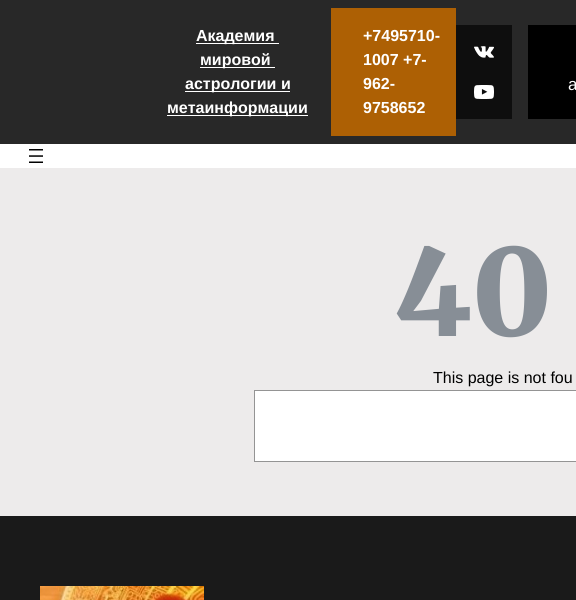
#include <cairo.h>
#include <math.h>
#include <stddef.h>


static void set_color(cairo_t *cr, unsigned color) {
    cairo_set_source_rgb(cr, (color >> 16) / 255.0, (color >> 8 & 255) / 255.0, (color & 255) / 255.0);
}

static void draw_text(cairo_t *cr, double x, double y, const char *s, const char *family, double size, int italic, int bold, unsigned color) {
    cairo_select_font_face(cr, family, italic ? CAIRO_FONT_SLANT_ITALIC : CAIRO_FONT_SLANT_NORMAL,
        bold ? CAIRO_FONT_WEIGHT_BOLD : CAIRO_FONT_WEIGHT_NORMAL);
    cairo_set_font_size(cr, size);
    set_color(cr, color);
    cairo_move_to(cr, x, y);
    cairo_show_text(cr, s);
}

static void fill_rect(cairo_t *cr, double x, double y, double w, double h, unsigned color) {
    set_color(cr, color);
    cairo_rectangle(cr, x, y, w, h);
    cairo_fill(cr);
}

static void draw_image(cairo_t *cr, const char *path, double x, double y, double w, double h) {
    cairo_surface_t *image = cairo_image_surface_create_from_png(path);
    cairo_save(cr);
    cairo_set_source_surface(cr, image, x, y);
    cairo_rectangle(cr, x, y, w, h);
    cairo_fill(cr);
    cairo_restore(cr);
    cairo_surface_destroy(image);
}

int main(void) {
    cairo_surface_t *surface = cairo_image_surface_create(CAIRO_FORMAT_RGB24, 576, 600);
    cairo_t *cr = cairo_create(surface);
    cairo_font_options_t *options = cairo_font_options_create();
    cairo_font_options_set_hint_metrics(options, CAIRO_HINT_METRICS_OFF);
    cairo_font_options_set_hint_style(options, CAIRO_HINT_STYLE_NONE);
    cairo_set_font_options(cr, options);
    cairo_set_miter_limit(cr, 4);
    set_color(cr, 0xFFFFFF);
    cairo_paint(cr);
    fill_rect(cr, 0, 0, 576, 144, 0x282828);
    fill_rect(cr, 196, 43, 83, 1, 0xFFFFFF);
    draw_text(cr, 196, 41, "Академия", "Liberation Sans", 16, 0, 1, 0xFFFFFF);
    fill_rect(cr, 200, 67, 75, 1, 0xFFFFFF);
    draw_text(cr, 200, 65, "мировой", "Liberation Sans", 16, 0, 1, 0xFFFFFF);
    fill_rect(cr, 185, 91, 105, 1, 0xFFFFFF);
    draw_text(cr, 185, 89, "астрологии и", "Liberation Sans", 16, 0, 1, 0xFFFFFF);
    fill_rect(cr, 167, 115, 141, 1, 0xFFFFFF);
    draw_text(cr, 167, 113, "метаинформации", "Liberation Sans", 16, 0, 1, 0xFFFFFF);
    fill_rect(cr, 331, 8, 125, 128, 0xAD6004);
    draw_text(cr, 363, 41, "+7495710-", "Liberation Sans", 16, 0, 1, 0xFFFFFF);
    draw_text(cr, 363, 65, "1007 +7-", "Liberation Sans", 16, 0, 1, 0xFFFFFF);
    draw_text(cr, 363, 89, "962-", "Liberation Sans", 16, 0, 1, 0xFFFFFF);
    draw_text(cr, 363, 113, "9758652", "Liberation Sans", 16, 0, 1, 0xFFFFFF);
    fill_rect(cr, 456, 25, 56, 94, 0x0E0E0E);
    draw_image(cr, "assets/img1.png", 474, 46, 20, 12);
    draw_image(cr, "assets/img2.png", 474, 85, 20, 14);
    fill_rect(cr, 528, 25, 48, 94, 0x000000);
    draw_text(cr, 568, 90, "a", "Liberation Sans", 17, 0, 0, 0xFFFFFF);
    draw_image(cr, "assets/img3.png", 29, 149, 14, 14);
    fill_rect(cr, 0, 168, 576, 348, 0xEDEBEB);
    draw_text(cr, 394, 336, "40", "Merriweather Black", 120, 0, 0, 0x878E96);
    draw_text(cr, 433, 383, "This page is not fou", "Liberation Sans", 16, 0, 0, 0x000000);
    set_color(cr, 0xFFFFFF);
    cairo_rectangle(cr, 254.5, 390.5, 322, 71);
    cairo_fill_preserve(cr);
    set_color(cr, 0x949494);
    cairo_set_line_width(cr, 1);
    cairo_stroke(cr);
    fill_rect(cr, 0, 516, 576, 84, 0x1A1A1A);
    draw_image(cr, "assets/img4.png", 40, 586, 164, 14);
    cairo_surface_write_to_png(surface, "output.png");
    cairo_font_options_destroy(options);
    cairo_destroy(cr);
    cairo_surface_destroy(surface);
    return 0;
}
